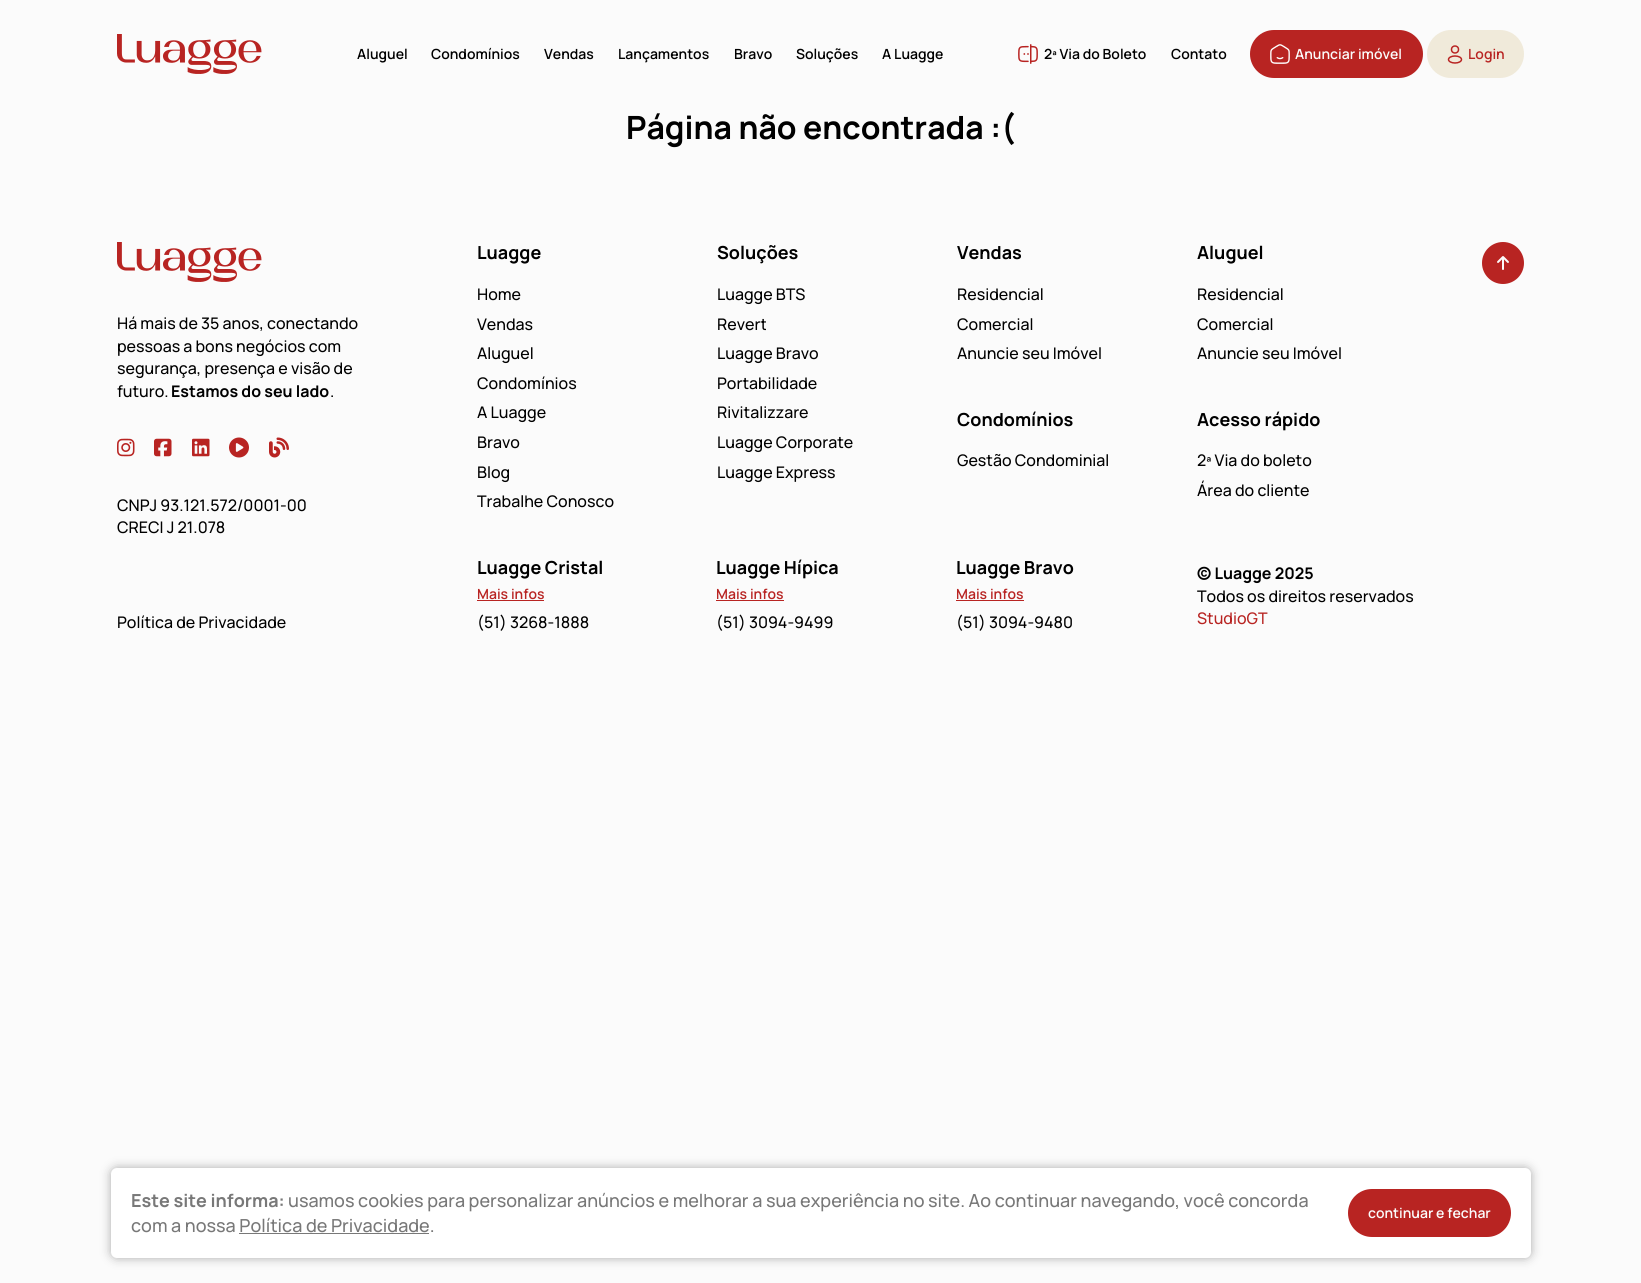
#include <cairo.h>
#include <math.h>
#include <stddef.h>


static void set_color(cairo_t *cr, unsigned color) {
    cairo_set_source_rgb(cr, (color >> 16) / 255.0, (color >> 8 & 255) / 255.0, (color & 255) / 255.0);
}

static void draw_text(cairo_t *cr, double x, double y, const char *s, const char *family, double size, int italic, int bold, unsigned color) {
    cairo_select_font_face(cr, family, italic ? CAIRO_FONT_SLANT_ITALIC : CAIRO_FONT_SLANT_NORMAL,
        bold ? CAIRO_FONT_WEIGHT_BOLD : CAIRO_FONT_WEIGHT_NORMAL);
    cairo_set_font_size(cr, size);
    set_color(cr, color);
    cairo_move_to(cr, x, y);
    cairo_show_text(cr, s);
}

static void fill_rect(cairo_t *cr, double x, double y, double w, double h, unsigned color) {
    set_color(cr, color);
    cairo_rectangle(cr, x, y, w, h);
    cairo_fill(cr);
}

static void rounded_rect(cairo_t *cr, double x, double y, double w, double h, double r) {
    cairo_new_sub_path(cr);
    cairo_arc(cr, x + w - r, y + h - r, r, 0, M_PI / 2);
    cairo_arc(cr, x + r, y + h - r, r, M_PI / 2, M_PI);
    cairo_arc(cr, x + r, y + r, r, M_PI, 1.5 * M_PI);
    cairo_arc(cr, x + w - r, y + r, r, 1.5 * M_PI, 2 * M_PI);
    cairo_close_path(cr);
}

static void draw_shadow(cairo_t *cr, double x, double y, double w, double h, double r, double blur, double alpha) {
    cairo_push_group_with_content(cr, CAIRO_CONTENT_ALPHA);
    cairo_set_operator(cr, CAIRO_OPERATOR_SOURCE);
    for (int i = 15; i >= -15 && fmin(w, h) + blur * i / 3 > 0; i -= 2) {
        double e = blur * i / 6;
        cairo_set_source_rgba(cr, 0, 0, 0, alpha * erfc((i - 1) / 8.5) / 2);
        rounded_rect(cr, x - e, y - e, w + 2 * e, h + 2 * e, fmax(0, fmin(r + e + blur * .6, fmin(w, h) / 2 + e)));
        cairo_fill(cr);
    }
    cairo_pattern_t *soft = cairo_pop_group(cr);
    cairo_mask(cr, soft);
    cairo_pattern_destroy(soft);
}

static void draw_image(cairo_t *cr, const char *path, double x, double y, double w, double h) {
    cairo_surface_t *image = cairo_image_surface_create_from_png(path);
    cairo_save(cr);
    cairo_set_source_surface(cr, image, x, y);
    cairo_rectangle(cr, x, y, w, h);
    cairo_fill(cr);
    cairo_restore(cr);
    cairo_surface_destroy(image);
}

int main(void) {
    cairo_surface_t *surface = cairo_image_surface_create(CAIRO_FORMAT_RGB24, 1641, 1283);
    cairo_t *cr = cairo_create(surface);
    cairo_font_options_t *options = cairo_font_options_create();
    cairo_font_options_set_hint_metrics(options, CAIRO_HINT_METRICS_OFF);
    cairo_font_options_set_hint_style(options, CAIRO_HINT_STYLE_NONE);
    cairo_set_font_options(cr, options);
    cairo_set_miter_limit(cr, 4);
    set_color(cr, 0xFBFBFB);
    cairo_paint(cr);
    draw_image(cr, "assets/img1.png", 117, 34, 145, 40);
    draw_text(cr, 357, 59, "Aluguel", "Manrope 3 ExtraLight", 14, 0, 0, 0x000000);
    draw_text(cr, 431, 59, "Condomínios", "Manrope 3 ExtraLight", 14, 0, 0, 0x000000);
    draw_text(cr, 544, 59, "Vendas", "Manrope 3 ExtraLight", 14, 0, 0, 0x000000);
    draw_text(cr, 618, 59, "Lançamentos", "Manrope 3 ExtraLight", 14, 0, 0, 0x000000);
    draw_text(cr, 734, 59, "Bravo", "Manrope 3 ExtraLight", 14, 0, 0, 0x000000);
    draw_text(cr, 796, 59, "Soluções", "Manrope 3 ExtraLight", 14, 0, 0, 0x000000);
    draw_text(cr, 882, 59, "A Luagge", "Manrope 3 ExtraLight", 14, 0, 0, 0x000000);
    draw_image(cr, "assets/img2.png", 1018, 44, 20, 20);
    draw_text(cr, 1044, 59, "2ª Via do Boleto", "Manrope 3 ExtraLight", 14, 0, 0, 0x000000);
    draw_text(cr, 1171, 59, "Contato", "Manrope 3 ExtraLight", 14, 0, 0, 0x000000);
    set_color(cr, 0xB82422);
    rounded_rect(cr, 1250, 30, 173, 48, 24);
    cairo_fill(cr);
    draw_image(cr, "assets/img3.png", 1270, 44, 20, 20);
    draw_text(cr, 1295, 59, "Anunciar imóvel", "Manrope 3 ExtraLight", 14, 0, 0, 0xFBFBFB);
    set_color(cr, 0xF0EADA);
    rounded_rect(cr, 1427, 30, 97, 48, 24);
    cairo_fill(cr);
    cairo_arc(cr, 1455, 49.5, 3.5, 0, 2 * M_PI);
    set_color(cr, 0xB82422);
    cairo_set_line_width(cr, 1.5);
    cairo_stroke(cr);
    cairo_new_path(cr);
    cairo_move_to(cr, 1455, 56);
    cairo_curve_to(cr, 1458.5, 56, 1461.5, 57.5, 1461.5, 59.5);
    cairo_curve_to(cr, 1461.5, 61.5, 1458.5, 63, 1455, 63);
    cairo_curve_to(cr, 1451.5, 63, 1448.5, 61.5, 1448.5, 59.5);
    cairo_curve_to(cr, 1448.5, 57.5, 1451.5, 56, 1455, 56);
    cairo_close_path(cr);
    cairo_stroke(cr);
    draw_text(cr, 1468, 59, "Login", "Manrope 3 ExtraLight", 14, 0, 0, 0xB82422);
    draw_text(cr, 626, 139, "Página não encontrada :(", "Manrope ExtraLight", 32, 0, 0, 0x000000);
    draw_image(cr, "assets/img1.png", 117, 242, 145, 40);
    draw_text(cr, 117, 329, "Há mais de 35 anos, conectando", "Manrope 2 ExtraLight", 16, 0, 0, 0x000000);
    draw_text(cr, 117, 352, "pessoas a bons negócios com", "Manrope 2 ExtraLight", 16, 0, 0, 0x000000);
    draw_text(cr, 117, 374, "segurança, presença e visão de", "Manrope 2 ExtraLight", 16, 0, 0, 0x000000);
    draw_text(cr, 117, 397, "futuro.", "Manrope 2 ExtraLight", 16, 0, 0, 0x000000);
    draw_text(cr, 171, 397, "Estamos do seu lado", "Manrope ExtraLight", 16, 0, 0, 0x000000);
    draw_text(cr, 330, 397, ".", "Manrope 2 ExtraLight", 16, 0, 0, 0x000000);
    draw_image(cr, "assets/img4.png", 117, 438, 18, 19);
    draw_image(cr, "assets/img5.png", 154, 438, 18, 19);
    draw_image(cr, "assets/img6.png", 192, 438, 18, 19);
    draw_image(cr, "assets/img7.png", 229, 437, 20, 21);
    draw_image(cr, "assets/img8.png", 269, 437, 20, 21);
    draw_text(cr, 117, 511, "CNPJ 93.121.572/0001-00", "Manrope 2 ExtraLight", 16, 0, 0, 0x000000);
    draw_text(cr, 117, 533, "CRECI J 21.078", "Manrope 2 ExtraLight", 16, 0, 0, 0x000000);
    draw_text(cr, 477, 259, "Luagge", "Manrope ExtraLight", 18, 0, 0, 0x000000);
    draw_text(cr, 477, 300, "Home", "Manrope 2 ExtraLight", 16, 0, 0, 0x000000);
    draw_text(cr, 477, 330, "Vendas", "Manrope 2 ExtraLight", 16, 0, 0, 0x000000);
    draw_text(cr, 477, 359, "Aluguel", "Manrope 2 ExtraLight", 16, 0, 0, 0x000000);
    draw_text(cr, 477, 389, "Condomínios", "Manrope 2 ExtraLight", 16, 0, 0, 0x000000);
    draw_text(cr, 477, 418, "A Luagge", "Manrope 2 ExtraLight", 16, 0, 0, 0x000000);
    draw_text(cr, 477, 448, "Bravo", "Manrope 2 ExtraLight", 16, 0, 0, 0x000000);
    draw_text(cr, 477, 478, "Blog", "Manrope 2 ExtraLight", 16, 0, 0, 0x000000);
    draw_text(cr, 477, 507, "Trabalhe Conosco", "Manrope 2 ExtraLight", 16, 0, 0, 0x000000);
    draw_text(cr, 717, 259, "Soluções", "Manrope ExtraLight", 18, 0, 0, 0x000000);
    draw_text(cr, 717, 300, "Luagge BTS", "Manrope 2 ExtraLight", 16, 0, 0, 0x000000);
    draw_text(cr, 717, 330, "Revert", "Manrope 2 ExtraLight", 16, 0, 0, 0x000000);
    draw_text(cr, 717, 359, "Luagge Bravo", "Manrope 2 ExtraLight", 16, 0, 0, 0x000000);
    draw_text(cr, 717, 389, "Portabilidade", "Manrope 2 ExtraLight", 16, 0, 0, 0x000000);
    draw_text(cr, 717, 418, "Rivitalizzare", "Manrope 2 ExtraLight", 16, 0, 0, 0x000000);
    draw_text(cr, 717, 448, "Luagge Corporate", "Manrope 2 ExtraLight", 16, 0, 0, 0x000000);
    draw_text(cr, 717, 478, "Luagge Express", "Manrope 2 ExtraLight", 16, 0, 0, 0x000000);
    draw_text(cr, 957, 259, "Vendas", "Manrope ExtraLight", 18, 0, 0, 0x000000);
    draw_text(cr, 957, 300, "Residencial", "Manrope 2 ExtraLight", 16, 0, 0, 0x000000);
    draw_text(cr, 957, 330, "Comercial", "Manrope 2 ExtraLight", 16, 0, 0, 0x000000);
    draw_text(cr, 957, 359, "Anuncie seu Imóvel", "Manrope 2 ExtraLight", 16, 0, 0, 0x000000);
    draw_text(cr, 957, 426, "Condomínios", "Manrope ExtraLight", 18, 0, 0, 0x000000);
    draw_text(cr, 957, 466, "Gestão Condominial", "Manrope 2 ExtraLight", 16, 0, 0, 0x000000);
    draw_text(cr, 1197, 259, "Aluguel", "Manrope ExtraLight", 18, 0, 0, 0x000000);
    draw_text(cr, 1197, 300, "Residencial", "Manrope 2 ExtraLight", 16, 0, 0, 0x000000);
    draw_text(cr, 1197, 330, "Comercial", "Manrope 2 ExtraLight", 16, 0, 0, 0x000000);
    draw_text(cr, 1197, 359, "Anuncie seu Imóvel", "Manrope 2 ExtraLight", 16, 0, 0, 0x000000);
    draw_text(cr, 1197, 426, "Acesso rápido", "Manrope ExtraLight", 18, 0, 0, 0x000000);
    draw_text(cr, 1197, 466, "2ª Via do boleto", "Manrope 2 ExtraLight", 16, 0, 0, 0x000000);
    draw_text(cr, 1197, 496, "Área do cliente", "Manrope 2 ExtraLight", 16, 0, 0, 0x000000);
    set_color(cr, 0xB82422);
    cairo_new_path(cr);
    cairo_arc(cr, 1503, 263, 20, 0, 2 * M_PI);
    cairo_fill_preserve(cr);
    cairo_set_line_width(cr, 2);
    cairo_stroke(cr);
    draw_image(cr, "assets/img9.png", 1497, 256, 12, 14);
    draw_text(cr, 117, 628, "Política de Privacidade", "Manrope 2 ExtraLight", 16, 0, 0, 0x000000);
    draw_text(cr, 477, 574, "Luagge Cristal", "Manrope ExtraLight", 18, 0, 0, 0x000000);
    draw_text(cr, 477, 599, "Mais infos", "Manrope 3 ExtraLight", 14, 0, 0, 0xB82422);
    fill_rect(cr, 477, 600, 67, 1, 0xB82422);
    draw_text(cr, 477, 628, "(51) 3268-1888", "Manrope 2 ExtraLight", 16, 0, 0, 0x000000);
    draw_text(cr, 716, 574, "Luagge Hípica", "Manrope ExtraLight", 18, 0, 0, 0x000000);
    draw_text(cr, 716, 599, "Mais infos", "Manrope 3 ExtraLight", 14, 0, 0, 0xB82422);
    fill_rect(cr, 716, 600, 68, 1, 0xB82422);
    draw_text(cr, 716, 628, "(51) 3094-9499", "Manrope 2 ExtraLight", 16, 0, 0, 0x000000);
    draw_text(cr, 956, 574, "Luagge Bravo", "Manrope ExtraLight", 18, 0, 0, 0x000000);
    draw_text(cr, 956, 599, "Mais infos", "Manrope 3 ExtraLight", 14, 0, 0, 0xB82422);
    fill_rect(cr, 956, 600, 68, 1, 0xB82422);
    draw_text(cr, 956, 628, "(51) 3094-9480", "Manrope 2 ExtraLight", 16, 0, 0, 0x000000);
    draw_text(cr, 1197, 579, "© Luagge 2025", "Manrope ExtraLight", 16, 0, 0, 0x000000);
    draw_text(cr, 1197, 602, "Todos os direitos reservados", "Manrope 2 ExtraLight", 16, 0, 0, 0x000000);
    draw_text(cr, 1197, 624, "StudioGT", "Manrope 2 ExtraLight", 16, 0, 0, 0xB82422);
    set_color(cr, 0xAAAAAA);
    draw_shadow(cr, 111, 1168, 1420, 90, 6, 5, 1);
    set_color(cr, 0xFFFFFF);
    rounded_rect(cr, 111, 1168, 1420, 90, 6);
    cairo_fill(cr);
    draw_text(cr, 131, 1207, "Este site informa:", "Manrope ExtraLight", 18, 0, 0, 0x787878);
    draw_text(cr, 288, 1207, "usamos cookies para personalizar anúncios e melhorar a sua experiência no site. Ao continuar navegando, você concorda", "Manrope 2 ExtraLight", 18, 0, 0, 0x787878);
    draw_text(cr, 131, 1232, "com a nossa Política de Privacidade.", "Manrope 2 ExtraLight", 18, 0, 0, 0x787878);
    fill_rect(cr, 239, 1233, 190, 1, 0x787878);
    set_color(cr, 0xB82422);
    rounded_rect(cr, 1348, 1189, 163, 48, 24);
    cairo_fill(cr);
    draw_text(cr, 1368, 1218, "continuar e fechar", "Manrope 3 ExtraLight", 14, 0, 0, 0xFBFBFB);
    cairo_surface_write_to_png(surface, "output.png");
    cairo_font_options_destroy(options);
    cairo_destroy(cr);
    cairo_surface_destroy(surface);
    return 0;
}
